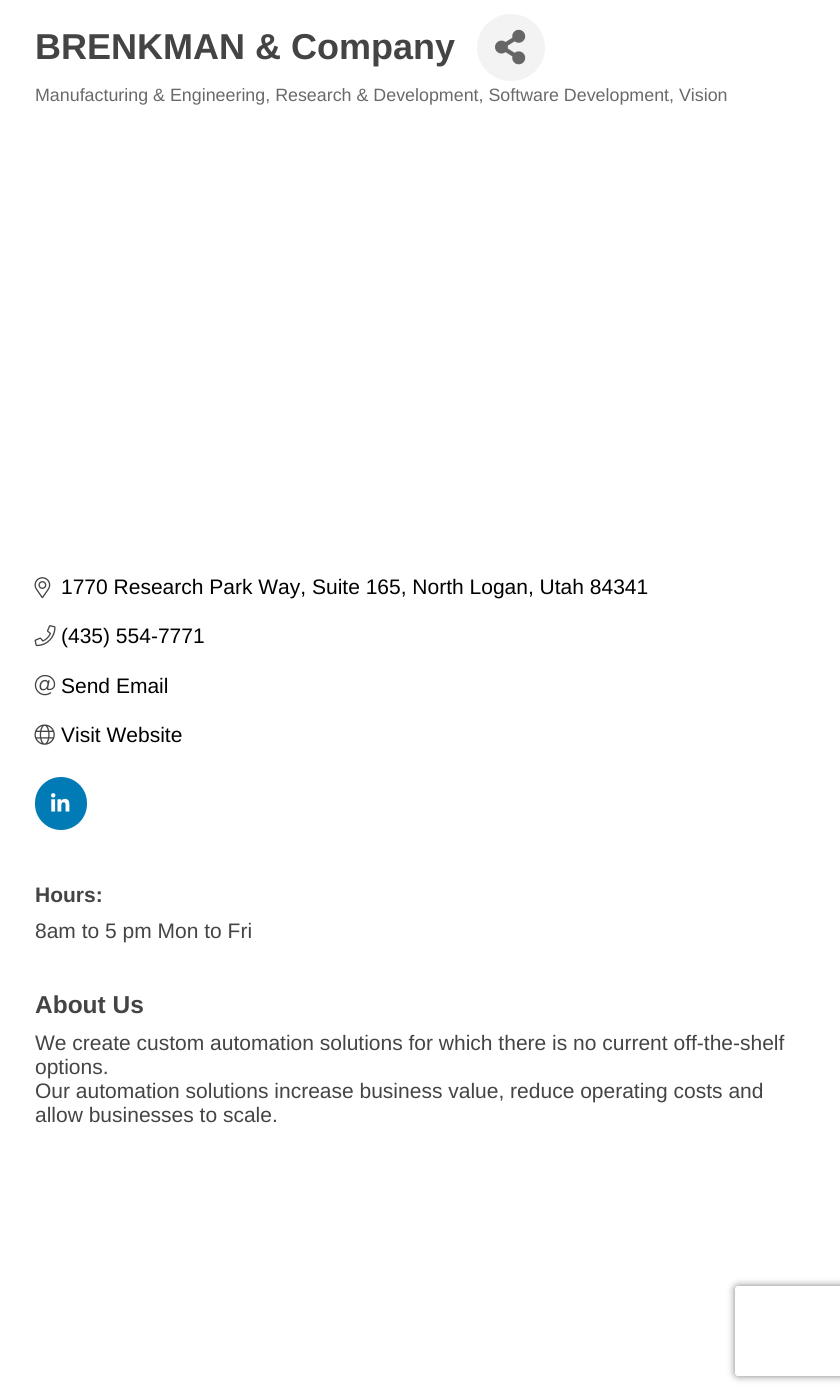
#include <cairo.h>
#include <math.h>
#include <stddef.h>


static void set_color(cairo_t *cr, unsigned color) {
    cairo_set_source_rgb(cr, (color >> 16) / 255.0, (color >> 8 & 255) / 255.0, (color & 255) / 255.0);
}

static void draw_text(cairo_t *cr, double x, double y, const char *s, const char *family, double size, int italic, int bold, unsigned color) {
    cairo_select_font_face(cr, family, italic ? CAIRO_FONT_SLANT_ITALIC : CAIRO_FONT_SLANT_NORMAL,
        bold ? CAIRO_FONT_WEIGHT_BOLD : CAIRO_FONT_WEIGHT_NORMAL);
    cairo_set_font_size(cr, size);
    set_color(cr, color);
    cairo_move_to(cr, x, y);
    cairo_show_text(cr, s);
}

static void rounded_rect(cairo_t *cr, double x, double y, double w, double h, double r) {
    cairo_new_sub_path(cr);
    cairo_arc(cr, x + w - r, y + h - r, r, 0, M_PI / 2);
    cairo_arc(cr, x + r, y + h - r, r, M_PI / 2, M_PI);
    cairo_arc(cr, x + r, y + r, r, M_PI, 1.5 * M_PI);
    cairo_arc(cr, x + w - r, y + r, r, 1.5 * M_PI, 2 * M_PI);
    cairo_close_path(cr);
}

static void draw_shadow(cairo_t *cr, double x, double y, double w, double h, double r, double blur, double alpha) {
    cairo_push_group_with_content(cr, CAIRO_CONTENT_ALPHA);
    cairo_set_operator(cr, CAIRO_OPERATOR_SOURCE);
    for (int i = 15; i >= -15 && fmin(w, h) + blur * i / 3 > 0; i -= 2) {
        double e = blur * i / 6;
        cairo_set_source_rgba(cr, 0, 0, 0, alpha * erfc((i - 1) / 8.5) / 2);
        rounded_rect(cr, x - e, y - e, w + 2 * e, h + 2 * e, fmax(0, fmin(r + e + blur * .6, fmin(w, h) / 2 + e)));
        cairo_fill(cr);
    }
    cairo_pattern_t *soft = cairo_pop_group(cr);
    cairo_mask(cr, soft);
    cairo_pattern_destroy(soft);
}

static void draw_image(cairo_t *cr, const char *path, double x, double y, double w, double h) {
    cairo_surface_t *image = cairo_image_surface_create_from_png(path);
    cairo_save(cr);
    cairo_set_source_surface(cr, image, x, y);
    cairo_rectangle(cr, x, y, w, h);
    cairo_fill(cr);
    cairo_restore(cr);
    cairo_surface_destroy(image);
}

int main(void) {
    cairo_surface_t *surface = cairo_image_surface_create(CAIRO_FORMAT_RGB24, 840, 1396);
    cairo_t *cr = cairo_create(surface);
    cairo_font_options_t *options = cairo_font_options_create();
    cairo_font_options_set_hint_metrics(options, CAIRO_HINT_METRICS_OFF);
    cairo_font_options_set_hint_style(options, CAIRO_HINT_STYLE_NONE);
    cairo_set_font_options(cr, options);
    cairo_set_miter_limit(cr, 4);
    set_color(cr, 0xFFFFFF);
    cairo_paint(cr);
    draw_text(cr, 35, 59, "BRENKMAN & Company", "Liberation Sans", 36, 0, 1, 0x444444);
    set_color(cr, 0xF3F3F3);
    rounded_rect(cr, 477, 14, 68, 67, 33.5);
    cairo_fill(cr);
    draw_image(cr, "assets/img1.png", 495, 29, 31, 36);
    draw_text(cr, 35, 101, "Manufacturing & Engineering, Research & Development, Software Development, Vision", "Liberation Sans", 17.85, 0, 0, 0x696969);
    draw_image(cr, "assets/img2.png", 34, 577, 17, 22);
    draw_text(cr, 61, 594, "1770 Research Park Way, Suite 165, North Logan, Utah 84341", "Liberation Sans", 21, 0, 0, 0x000000);
    draw_image(cr, "assets/img3.png", 34, 625, 22, 22);
    draw_text(cr, 61, 643, "(435) 554-7771", "Liberation Sans", 21, 0, 0, 0x000000);
    draw_image(cr, "assets/img4.png", 34, 675, 22, 21);
    draw_text(cr, 61, 693, "Send Email", "Liberation Sans", 21, 0, 0, 0x000000);
    draw_image(cr, "assets/img5.png", 34, 724, 21, 21);
    draw_text(cr, 61, 742, "Visit Website", "Liberation Sans", 21, 0, 0, 0x000000);
    set_color(cr, 0x007BB5);
    rounded_rect(cr, 35, 777, 52, 53, 26);
    cairo_fill(cr);
    draw_image(cr, "assets/img6.png", 51, 793, 19, 19);
    draw_text(cr, 35, 902, "Hours:", "Liberation Sans", 21, 0, 1, 0x444444);
    draw_text(cr, 35, 938, "8am to 5 pm Mon to Fri", "Liberation Sans", 21, 0, 0, 0x444444);
    draw_text(cr, 35, 1013, "About Us", "Liberation Sans", 24.5, 0, 1, 0x444444);
    draw_text(cr, 35, 1050, "We create custom automation solutions for which there is no current off-the-shelf", "Liberation Sans", 21, 0, 0, 0x444444);
    draw_text(cr, 35, 1074, "options.", "Liberation Sans", 21, 0, 0, 0x444444);
    draw_text(cr, 35, 1098, "Our automation solutions increase business value, reduce operating costs and", "Liberation Sans", 21, 0, 0, 0x444444);
    draw_text(cr, 35, 1122, "allow businesses to scale.", "Liberation Sans", 21, 0, 0, 0x444444);
    cairo_save(cr);
    cairo_set_fill_rule(cr, CAIRO_FILL_RULE_EVEN_ODD);
    cairo_new_path(cr);
    cairo_move_to(cr, 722, 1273);
    cairo_line_to(cr, 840, 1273);
    cairo_line_to(cr, 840, 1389);
    cairo_line_to(cr, 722, 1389);
    cairo_close_path(cr);
    cairo_move_to(cr, 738, 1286);
    cairo_line_to(cr, 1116, 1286);
    cairo_curve_to(cr, 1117.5, 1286, 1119, 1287.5, 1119, 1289);
    cairo_line_to(cr, 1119, 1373);
    cairo_curve_to(cr, 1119, 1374.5, 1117.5, 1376, 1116, 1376);
    cairo_line_to(cr, 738, 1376);
    cairo_curve_to(cr, 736.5, 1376, 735, 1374.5, 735, 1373);
    cairo_line_to(cr, 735, 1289);
    cairo_curve_to(cr, 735, 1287.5, 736.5, 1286, 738, 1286);
    cairo_close_path(cr);
    cairo_clip(cr);
    set_color(cr, 0x808080);
    draw_shadow(cr, 735, 1286, 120, 90, 3, 4, 1);
    cairo_restore(cr);
    cairo_surface_write_to_png(surface, "output.png");
    cairo_font_options_destroy(options);
    cairo_destroy(cr);
    cairo_surface_destroy(surface);
    return 0;
}
